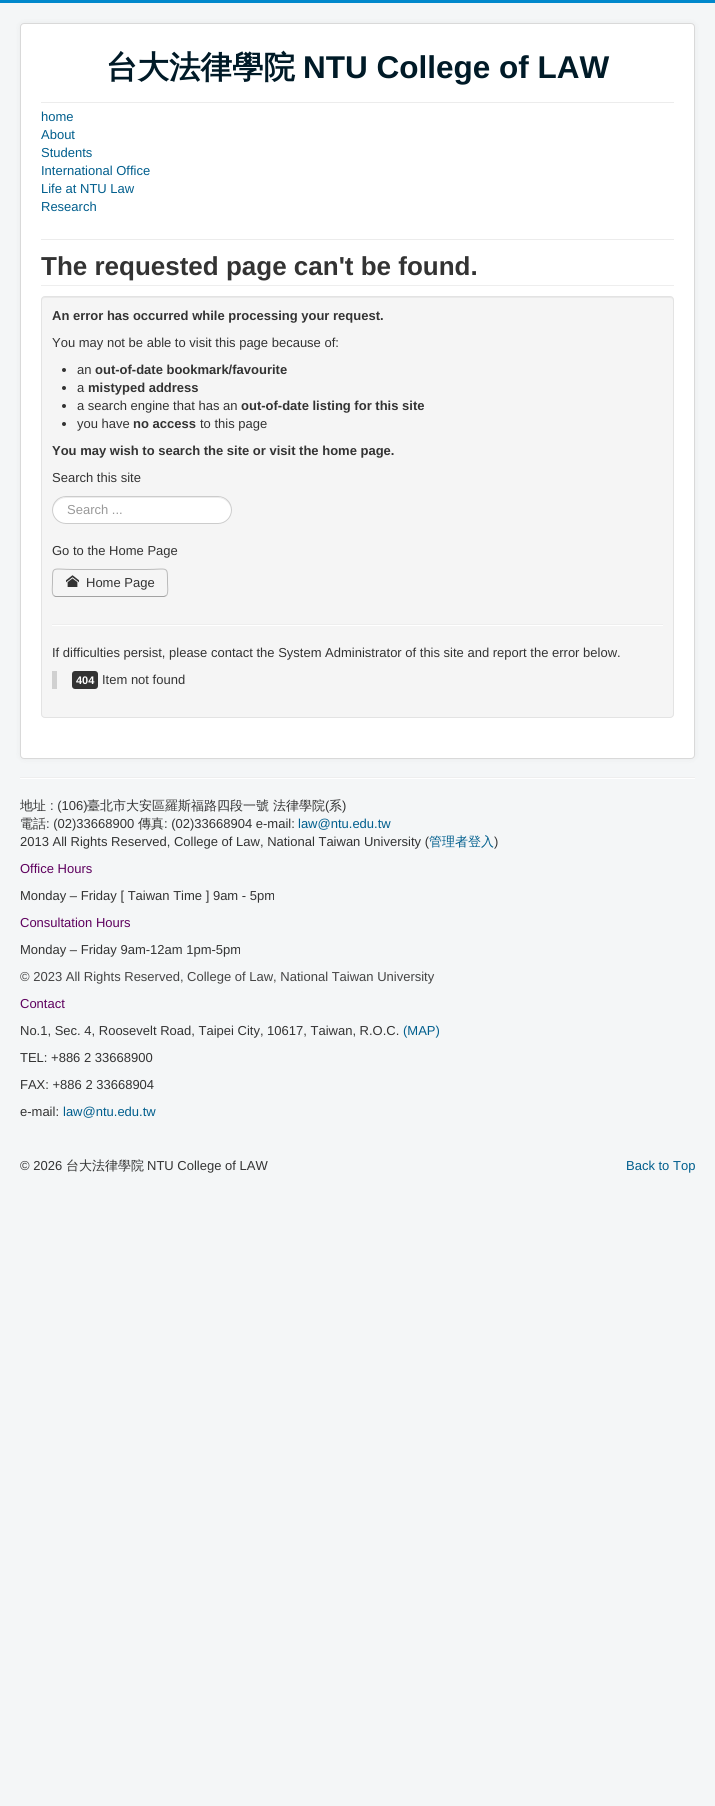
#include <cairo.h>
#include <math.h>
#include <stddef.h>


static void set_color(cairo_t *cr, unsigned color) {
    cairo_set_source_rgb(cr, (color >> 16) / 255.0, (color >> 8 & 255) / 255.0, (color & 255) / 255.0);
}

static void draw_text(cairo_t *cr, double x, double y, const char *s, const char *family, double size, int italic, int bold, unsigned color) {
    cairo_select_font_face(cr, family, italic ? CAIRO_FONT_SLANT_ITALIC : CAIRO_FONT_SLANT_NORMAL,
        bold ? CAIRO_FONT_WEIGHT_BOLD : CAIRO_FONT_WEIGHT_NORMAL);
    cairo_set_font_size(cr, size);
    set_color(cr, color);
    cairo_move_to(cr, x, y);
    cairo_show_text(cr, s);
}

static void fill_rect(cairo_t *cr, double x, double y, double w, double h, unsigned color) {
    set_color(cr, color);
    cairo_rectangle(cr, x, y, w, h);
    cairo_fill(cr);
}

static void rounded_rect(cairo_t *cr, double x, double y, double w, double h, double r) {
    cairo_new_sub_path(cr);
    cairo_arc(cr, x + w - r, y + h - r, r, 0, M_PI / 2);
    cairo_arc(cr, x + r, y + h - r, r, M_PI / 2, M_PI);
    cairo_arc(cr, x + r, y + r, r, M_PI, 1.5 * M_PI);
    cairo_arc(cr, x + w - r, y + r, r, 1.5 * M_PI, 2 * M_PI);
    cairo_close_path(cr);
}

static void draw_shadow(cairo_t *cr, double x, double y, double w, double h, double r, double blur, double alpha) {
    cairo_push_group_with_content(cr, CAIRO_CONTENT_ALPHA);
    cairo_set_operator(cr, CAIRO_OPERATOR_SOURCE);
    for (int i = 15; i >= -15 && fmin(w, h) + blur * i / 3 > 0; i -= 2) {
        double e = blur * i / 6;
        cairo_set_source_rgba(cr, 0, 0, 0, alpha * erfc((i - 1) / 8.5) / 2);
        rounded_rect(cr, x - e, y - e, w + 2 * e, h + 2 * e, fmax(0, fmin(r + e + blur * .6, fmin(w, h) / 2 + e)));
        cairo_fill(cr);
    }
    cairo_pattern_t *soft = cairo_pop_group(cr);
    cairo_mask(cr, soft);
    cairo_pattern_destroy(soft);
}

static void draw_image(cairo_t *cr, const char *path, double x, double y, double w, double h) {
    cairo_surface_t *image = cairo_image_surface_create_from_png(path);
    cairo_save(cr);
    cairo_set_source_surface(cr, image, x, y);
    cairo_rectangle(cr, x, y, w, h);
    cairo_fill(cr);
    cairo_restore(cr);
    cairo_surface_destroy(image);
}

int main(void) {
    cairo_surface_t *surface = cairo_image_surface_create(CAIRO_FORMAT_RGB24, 715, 1806);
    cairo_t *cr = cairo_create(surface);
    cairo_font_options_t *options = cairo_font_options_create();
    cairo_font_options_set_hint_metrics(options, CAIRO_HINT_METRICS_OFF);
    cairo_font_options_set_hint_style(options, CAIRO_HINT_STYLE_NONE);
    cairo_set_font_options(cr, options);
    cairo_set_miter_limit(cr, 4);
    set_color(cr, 0xF4F6F7);
    cairo_paint(cr);
    fill_rect(cr, 0, 0, 715, 3, 0x0088CC);
    set_color(cr, 0x000000);
    draw_shadow(cr, 20, 23, 675, 736, 4, 3, 0.05);
    set_color(cr, 0xFFFFFF);
    rounded_rect(cr, 20, 23, 675, 736, 4);
    cairo_fill(cr);
    rounded_rect(cr, 20.5, 23.5, 674, 735, 3.5);
    cairo_set_source_rgba(cr, 0, 0, 0, 0.15);
    cairo_set_line_width(cr, 1);
    cairo_stroke(cr);
    draw_text(cr, 106, 78, "台大法律學院", "WenQuanYi Zen Hei", 31.5, 0, 1, 0x001A27);
    draw_text(cr, 303, 78, "NTU College of LAW", "Liberation Sans", 31.5, 0, 1, 0x001A27);
    fill_rect(cr, 41, 102, 633, 1, 0xECECEC);
    fill_rect(cr, 41, 239, 633, 1, 0xECECEC);
    draw_text(cr, 41, 121, "home", "Liberation Sans", 13, 0, 0, 0x005E8D);
    draw_text(cr, 41, 139, "About", "Liberation Sans", 13, 0, 0, 0x005E8D);
    draw_text(cr, 41, 157, "Students", "Liberation Sans", 13, 0, 0, 0x005E8D);
    draw_text(cr, 41, 175, "International Office", "Liberation Sans", 13, 0, 0, 0x005E8D);
    draw_text(cr, 41, 193, "Life at NTU Law", "Liberation Sans", 13, 0, 0, 0x005E8D);
    draw_text(cr, 41, 211, "Research", "Liberation Sans", 13, 0, 0, 0x005E8D);
    fill_rect(cr, 41, 285, 633, 1, 0xEEEEEE);
    draw_text(cr, 41, 275, "The requested page can't be found.", "Liberation Sans", 26, 0, 1, 0x333333);
    set_color(cr, 0xF5F5F5);
    rounded_rect(cr, 41, 296, 633, 422, 4);
    cairo_fill(cr);
    set_color(cr, 0xE9E9E9);
    cairo_new_path(cr);
    cairo_move_to(cr, 45, 298);
    cairo_line_to(cr, 670, 298);
    cairo_curve_to(cr, 672, 298, 673, 299, 673, 301);
    cairo_line_to(cr, 673, 300);
    cairo_curve_to(cr, 673, 298, 672, 297, 670, 297);
    cairo_line_to(cr, 45, 297);
    cairo_curve_to(cr, 43, 297, 42, 298, 42, 300);
    cairo_line_to(cr, 42, 301);
    cairo_curve_to(cr, 42, 299, 43, 298, 45, 298);
    cairo_close_path(cr);
    cairo_fill(cr);
    rounded_rect(cr, 41.5, 296.5, 632, 421, 3.5);
    set_color(cr, 0xE3E3E3);
    cairo_stroke(cr);
    draw_text(cr, 52, 320, "An error has occurred while processing your request.", "Liberation Sans", 13, 0, 1, 0x333333);
    draw_text(cr, 52, 347, "You may not be able to visit this page because of:", "Liberation Sans", 13, 0, 0, 0x333333);
    cairo_new_path(cr);
    cairo_arc(cr, 64, 370, 2, 0, 2 * M_PI);
    cairo_fill(cr);
    draw_text(cr, 77, 374, "an", "Liberation Sans", 13, 0, 0, 0x333333);
    draw_text(cr, 95, 374, "out-of-date bookmark/favourite", "Liberation Sans", 13, 0, 1, 0x333333);
    cairo_new_path(cr);
    cairo_arc(cr, 64, 388, 2, 0, 2 * M_PI);
    cairo_fill(cr);
    draw_text(cr, 77, 392, "a", "Liberation Sans", 13, 0, 0, 0x333333);
    draw_text(cr, 88, 392, "mistyped address", "Liberation Sans", 13, 0, 1, 0x333333);
    cairo_new_path(cr);
    cairo_arc(cr, 64, 406, 2, 0, 2 * M_PI);
    cairo_fill(cr);
    draw_text(cr, 77, 410, "a search engine that has an", "Liberation Sans", 13, 0, 0, 0x333333);
    draw_text(cr, 241, 410, "out-of-date listing for this site", "Liberation Sans", 13, 0, 1, 0x333333);
    cairo_new_path(cr);
    cairo_arc(cr, 64, 424, 2, 0, 2 * M_PI);
    cairo_fill(cr);
    draw_text(cr, 77, 428, "you have", "Liberation Sans", 13, 0, 0, 0x333333);
    draw_text(cr, 133, 428, "no access", "Liberation Sans", 13, 0, 1, 0x333333);
    draw_text(cr, 200, 428, "to this page", "Liberation Sans", 13, 0, 0, 0x333333);
    draw_text(cr, 52, 455, "You may wish to search the site or visit the home page.", "Liberation Sans", 13, 0, 1, 0x333333);
    draw_text(cr, 52, 482, "Search this site", "Liberation Sans", 13, 0, 0, 0x333333);
    set_color(cr, 0xFFFFFF);
    rounded_rect(cr, 52, 496, 180, 28, 14);
    cairo_fill(cr);
    set_color(cr, 0xECECEC);
    cairo_new_path(cr);
    cairo_move_to(cr, 66, 498);
    cairo_line_to(cr, 218, 498);
    cairo_curve_to(cr, 225, 498, 231, 504, 231, 511);
    cairo_curve_to(cr, 232, 491, 202, 497, 193, 497);
    cairo_line_to(cr, 91, 497);
    cairo_curve_to(cr, 82, 497, 52, 491, 53, 511);
    cairo_curve_to(cr, 53, 504, 59, 498, 66, 498);
    cairo_close_path(cr);
    cairo_fill(cr);
    rounded_rect(cr, 52.5, 496.5, 179, 27, 13.5);
    set_color(cr, 0xCCCCCC);
    cairo_stroke(cr);
    draw_text(cr, 67, 514, "Search ...", "Liberation Sans", 13, 0, 0, 0x999999);
    draw_text(cr, 52, 555, "Go to the Home Page", "Liberation Sans", 13, 0, 0, 0x333333);
    cairo_new_path(cr);
    cairo_move_to(cr, 166.5, 595.5);
    cairo_line_to(cr, 164, 596.5);
    cairo_line_to(cr, 55.5, 596.5);
    cairo_line_to(cr, 53.5, 595.5);
    set_color(cr, 0xA2A2A2);
    cairo_stroke(cr);
    cairo_new_path(cr);
    cairo_move_to(cr, 53.5, 595.5);
    cairo_curve_to(cr, 51.5, 593, 52.5, 585.5, 52.5, 583);
    cairo_curve_to(cr, 52.5, 565, 51.5, 569.5, 74, 569.5);
    cairo_line_to(cr, 146, 569.5);
    cairo_curve_to(cr, 168.5, 569.5, 167.5, 565, 167.5, 583);
    cairo_curve_to(cr, 167.5, 585.5, 168.5, 593, 166.5, 595.5);
    set_color(cr, 0xBBBBBB);
    cairo_stroke(cr);
    draw_image(cr, "assets/img1.png", 66, 575, 13, 12);
    draw_text(cr, 86, 587, "Home Page", "Liberation Sans", 13, 0, 0, 0x333333);
    fill_rect(cr, 52, 624, 611, 1, 0xEEEEEE);
    fill_rect(cr, 52, 625, 611, 1, 0xFFFFFF);
    draw_text(cr, 52, 657, "If difficulties persist, please contact the System Administrator of this site and report the error below.", "Liberation Sans", 13, 0, 0, 0x333333);
    fill_rect(cr, 52, 671, 5, 18, 0xD0D0D0);
    set_color(cr, 0x333333);
    rounded_rect(cr, 72, 671, 26, 18, 3);
    cairo_fill(cr);
    draw_text(cr, 76, 684, "404", "Liberation Sans", 11, 0, 1, 0xFFFFFF);
    draw_text(cr, 102, 684, "Item not found", "Liberation Sans", 13, 0, 0, 0x333333);
    fill_rect(cr, 20, 777, 675, 1, 0xEEEEEE);
    fill_rect(cr, 20, 778, 675, 1, 0xFFFFFF);
    draw_text(cr, 20, 810, "地址", "WenQuanYi Zen Hei Medium", 13, 0, 0, 0x333333);
    draw_text(cr, 50, 810, ": (106)", "Liberation Sans", 13, 0, 0, 0x333333);
    draw_text(cr, 87, 810, "臺北市大安區羅斯福路四段一號 法律學院", "WenQuanYi Zen Hei Medium", 13, 0, 0, 0x333333);
    draw_text(cr, 325, 810, "(", "Liberation Sans", 13, 0, 0, 0x333333);
    draw_text(cr, 329, 810, "系", "WenQuanYi Zen Hei Medium", 13, 0, 0, 0x333333);
    draw_text(cr, 342, 810, ")", "Liberation Sans", 13, 0, 0, 0x333333);
    draw_text(cr, 20, 828, "電話", "WenQuanYi Zen Hei Medium", 13, 0, 0, 0x333333);
    draw_text(cr, 46, 828, ": (02)33668900", "Liberation Sans", 13, 0, 0, 0x333333);
    draw_text(cr, 138, 828, "傳真", "WenQuanYi Zen Hei Medium", 13, 0, 0, 0x333333);
    draw_text(cr, 164, 828, ": (02)33668904 e-mail:", "Liberation Sans", 13, 0, 0, 0x333333);
    draw_text(cr, 298, 828, "law@ntu.edu.tw", "Liberation Sans", 13, 0, 0, 0x005E8D);
    draw_text(cr, 20, 846, "2013 All Rights Reserved, College of Law, National Taiwan University (", "Liberation Sans", 13, 0, 0, 0x333333);
    draw_text(cr, 429, 846, "管理者登入", "WenQuanYi Zen Hei Medium", 13, 0, 0, 0x005E8D);
    draw_text(cr, 494, 846, ")", "Liberation Sans", 13, 0, 0, 0x333333);
    draw_text(cr, 20, 873, "Office Hours", "Liberation Sans", 13, 0, 0, 0x5E005E);
    draw_text(cr, 20, 900, "Monday – Friday [ Taiwan Time ] 9am - 5pm", "Liberation Sans", 13, 0, 0, 0x333333);
    draw_text(cr, 20, 927, "Consultation Hours", "Liberation Sans", 13, 0, 0, 0x5E005E);
    draw_text(cr, 20, 954, "Monday – Friday 9am-12am 1pm-5pm", "Liberation Sans", 13, 0, 0, 0x333333);
    draw_text(cr, 20, 981, "© 2023 All Rights Reserved, College of Law, National Taiwan University", "Liberation Sans", 13, 0, 0, 0x444444);
    draw_text(cr, 20, 1008, "Contact", "Liberation Sans", 13, 0, 0, 0x5E005E);
    draw_text(cr, 20, 1035, "No.1, Sec. 4, Roosevelt Road, Taipei City, 10617, Taiwan, R.O.C.", "Liberation Sans", 13, 0, 0, 0x333333);
    draw_text(cr, 403, 1035, "(MAP)", "Liberation Sans", 13, 0, 0, 0x005E8D);
    draw_text(cr, 20, 1062, "TEL: +886 2 33668900", "Liberation Sans", 13, 0, 0, 0x333333);
    draw_text(cr, 20, 1089, "FAX: +886 2 33668904", "Liberation Sans", 13, 0, 0, 0x333333);
    draw_text(cr, 20, 1116, "e-mail:", "Liberation Sans", 13, 0, 0, 0x333333);
    draw_text(cr, 63, 1116, "law@ntu.edu.tw", "Liberation Sans", 13, 0, 0, 0x005E8D);
    draw_text(cr, 20, 1170, "© 2026", "Liberation Sans", 13, 0, 0, 0x333333);
    draw_text(cr, 66, 1170, "台大法律學院", "WenQuanYi Zen Hei Medium", 13, 0, 0, 0x333333);
    draw_text(cr, 147, 1170, "NTU College of LAW", "Liberation Sans", 13, 0, 0, 0x333333);
    draw_text(cr, 626, 1170, "Back to Top", "Liberation Sans", 13, 0, 0, 0x005E8D);
    cairo_surface_write_to_png(surface, "output.png");
    cairo_font_options_destroy(options);
    cairo_destroy(cr);
    cairo_surface_destroy(surface);
    return 0;
}
